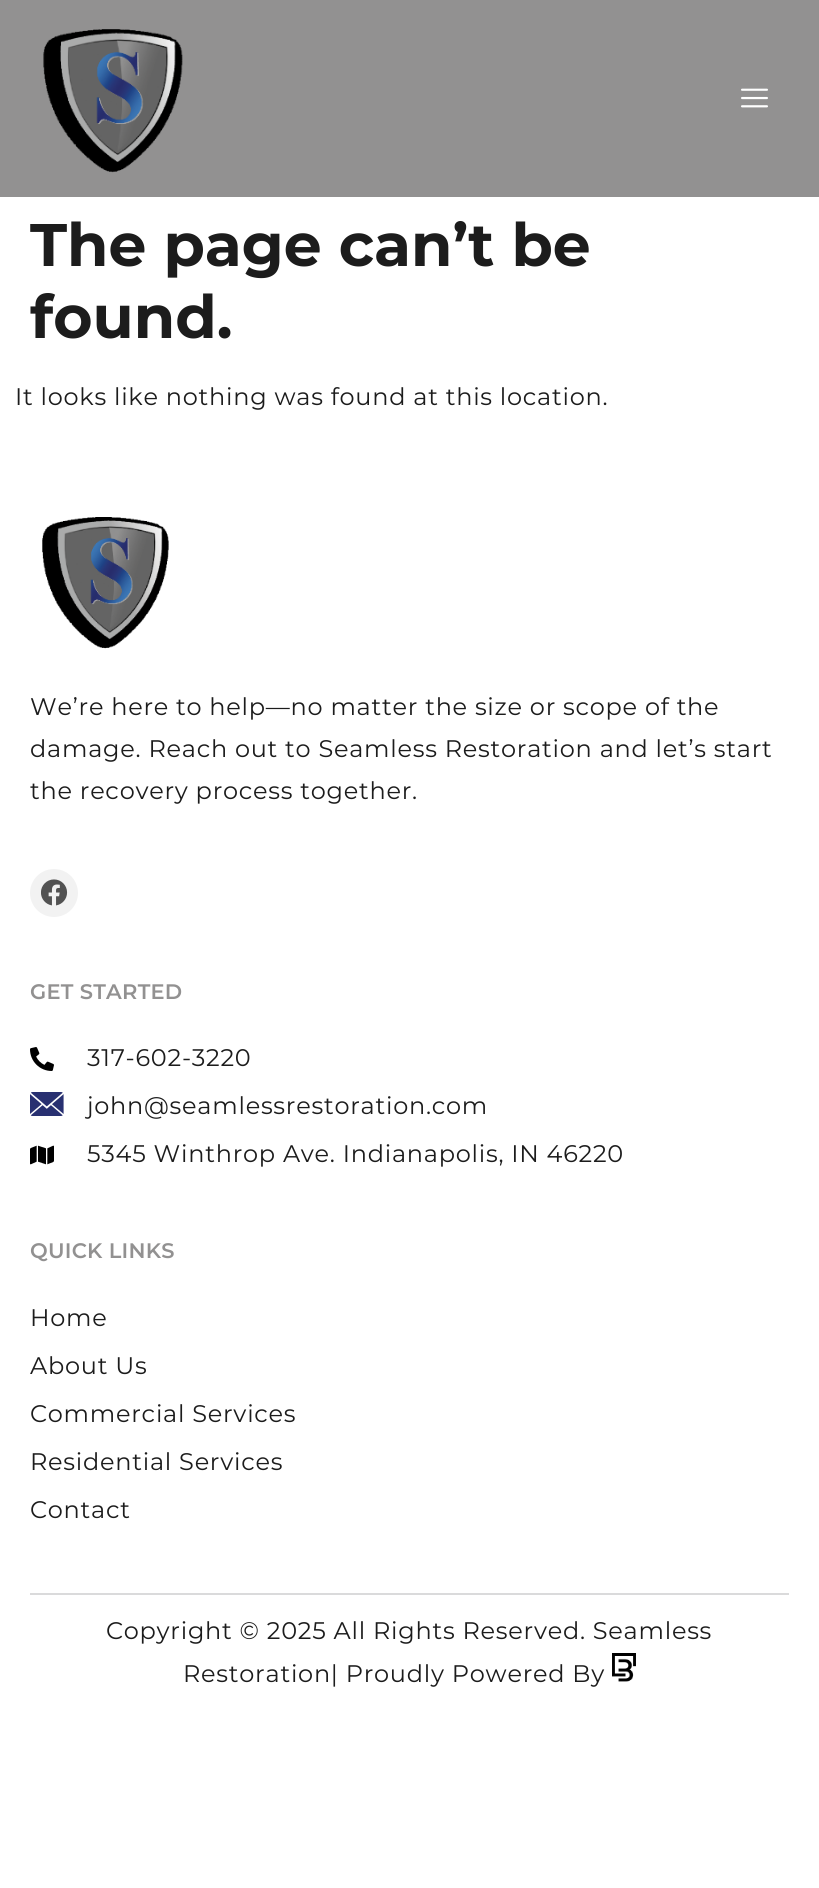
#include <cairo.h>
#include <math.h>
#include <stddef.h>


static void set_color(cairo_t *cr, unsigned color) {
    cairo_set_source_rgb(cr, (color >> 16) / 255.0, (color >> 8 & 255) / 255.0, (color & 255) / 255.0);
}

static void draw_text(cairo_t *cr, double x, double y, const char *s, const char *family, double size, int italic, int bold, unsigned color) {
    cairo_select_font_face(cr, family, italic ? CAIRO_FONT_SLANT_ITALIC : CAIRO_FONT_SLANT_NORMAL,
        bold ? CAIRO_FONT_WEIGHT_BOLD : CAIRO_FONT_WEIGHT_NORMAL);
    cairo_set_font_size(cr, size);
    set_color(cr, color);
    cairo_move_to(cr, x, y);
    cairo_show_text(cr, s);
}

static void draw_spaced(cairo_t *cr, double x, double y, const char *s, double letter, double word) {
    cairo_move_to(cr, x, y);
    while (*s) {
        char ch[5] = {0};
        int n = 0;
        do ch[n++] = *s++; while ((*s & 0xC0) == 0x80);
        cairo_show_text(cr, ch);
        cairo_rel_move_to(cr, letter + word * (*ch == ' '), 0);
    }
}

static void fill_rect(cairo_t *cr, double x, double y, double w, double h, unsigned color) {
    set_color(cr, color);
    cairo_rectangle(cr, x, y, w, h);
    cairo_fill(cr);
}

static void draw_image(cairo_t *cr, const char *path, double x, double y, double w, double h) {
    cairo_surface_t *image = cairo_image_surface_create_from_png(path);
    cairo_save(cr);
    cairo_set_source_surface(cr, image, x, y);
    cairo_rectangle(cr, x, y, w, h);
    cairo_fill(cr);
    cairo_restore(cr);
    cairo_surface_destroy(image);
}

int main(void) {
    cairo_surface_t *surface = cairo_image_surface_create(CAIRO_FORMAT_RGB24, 819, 1888);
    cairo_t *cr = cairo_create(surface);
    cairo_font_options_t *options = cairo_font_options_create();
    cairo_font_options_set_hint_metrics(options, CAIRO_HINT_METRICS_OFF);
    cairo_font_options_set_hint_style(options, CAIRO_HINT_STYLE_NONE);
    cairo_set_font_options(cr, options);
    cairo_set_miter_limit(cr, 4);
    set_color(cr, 0xFFFFFF);
    cairo_paint(cr);
    fill_rect(cr, 0, 0, 819, 197, 0x929191);
    draw_image(cr, "assets/img1.png", 43, 29, 140, 144);
    draw_image(cr, "assets/img2.png", 741, 88, 27, 20);
    draw_text(cr, 30, 266, "The page can’t be", "Montserrat", 60, 0, 1, 0x1C1C1C);
    draw_text(cr, 30, 338, "found.", "Montserrat", 60, 0, 1, 0x1C1C1C);
    cairo_select_font_face(cr, "Montserrat", CAIRO_FONT_SLANT_NORMAL, CAIRO_FONT_WEIGHT_NORMAL);
    cairo_set_font_size(cr, 24);
    draw_spaced(cr, 15, 405, "It looks like nothing was found at this location.", 0.75, 0);
    draw_image(cr, "assets/img3.png", 42, 517, 127, 132);
    draw_spaced(cr, 30, 715, "We’re here to help—no matter the size or scope of the", 0.75, 0);
    draw_spaced(cr, 30, 757, "damage. Reach out to Seamless Restoration and let’s start", 0.75, 0);
    draw_spaced(cr, 30, 799, "the recovery process together.", 0.75, 0);
    set_color(cr, 0xF2F2F2);
    cairo_new_path(cr);
    cairo_arc(cr, 54, 893, 24, 0, 2 * M_PI);
    cairo_fill(cr);
    draw_image(cr, "assets/img4.png", 41, 879, 27, 27);
    cairo_select_font_face(cr, "Montserrat SemiBold", CAIRO_FONT_SLANT_NORMAL, CAIRO_FONT_WEIGHT_NORMAL);
    cairo_set_font_size(cr, 21);
    set_color(cr, 0x929191);
    draw_spaced(cr, 30, 999, "GET STARTED", 0.25, 0);
    draw_image(cr, "assets/img5.png", 30, 1047, 24, 24);
    cairo_select_font_face(cr, "Montserrat", CAIRO_FONT_SLANT_NORMAL, CAIRO_FONT_WEIGHT_NORMAL);
    cairo_set_font_size(cr, 24);
    set_color(cr, 0x1C1C1C);
    draw_spaced(cr, 87, 1066, "317-602-3220", 0.75, 0);
    draw_image(cr, "assets/img6.png", 30, 1092, 34, 24);
    draw_spaced(cr, 87, 1114, "john@seamlessrestoration.com", 0.75, 0);
    draw_image(cr, "assets/img7.png", 30, 1145, 24, 20);
    draw_spaced(cr, 87, 1162, "5345 Winthrop Ave. Indianapolis, IN 46220", 0.75, 0);
    cairo_select_font_face(cr, "Montserrat SemiBold", CAIRO_FONT_SLANT_NORMAL, CAIRO_FONT_WEIGHT_NORMAL);
    cairo_set_font_size(cr, 21);
    set_color(cr, 0x929191);
    draw_spaced(cr, 30, 1258, "QUICK LINKS", 0.25, 0);
    cairo_select_font_face(cr, "Montserrat", CAIRO_FONT_SLANT_NORMAL, CAIRO_FONT_WEIGHT_NORMAL);
    cairo_set_font_size(cr, 24);
    set_color(cr, 0x1C1C1C);
    draw_spaced(cr, 30, 1326, "Home", 0.75, 0);
    draw_spaced(cr, 30, 1374, "About Us", 0.75, 0);
    draw_spaced(cr, 30, 1422, "Commercial Services", 0.75, 0);
    draw_spaced(cr, 30, 1470, "Residential Services", 0.75, 0);
    draw_spaced(cr, 30, 1518, "Contact", 0.75, 0);
    fill_rect(cr, 30, 1593, 759, 2, 0xDADADB);
    set_color(cr, 0x1C1C1C);
    draw_spaced(cr, 106, 1639, "Copyright © 2025 All Rights Reserved. Seamless", 0.75, 0);
    draw_spaced(cr, 183, 1682, "Restoration| Proudly Powered By", 0.75, 0);
    draw_image(cr, "assets/img8.png", 612, 1653, 24, 29);
    cairo_surface_write_to_png(surface, "output.png");
    cairo_font_options_destroy(options);
    cairo_destroy(cr);
    cairo_surface_destroy(surface);
    return 0;
}
